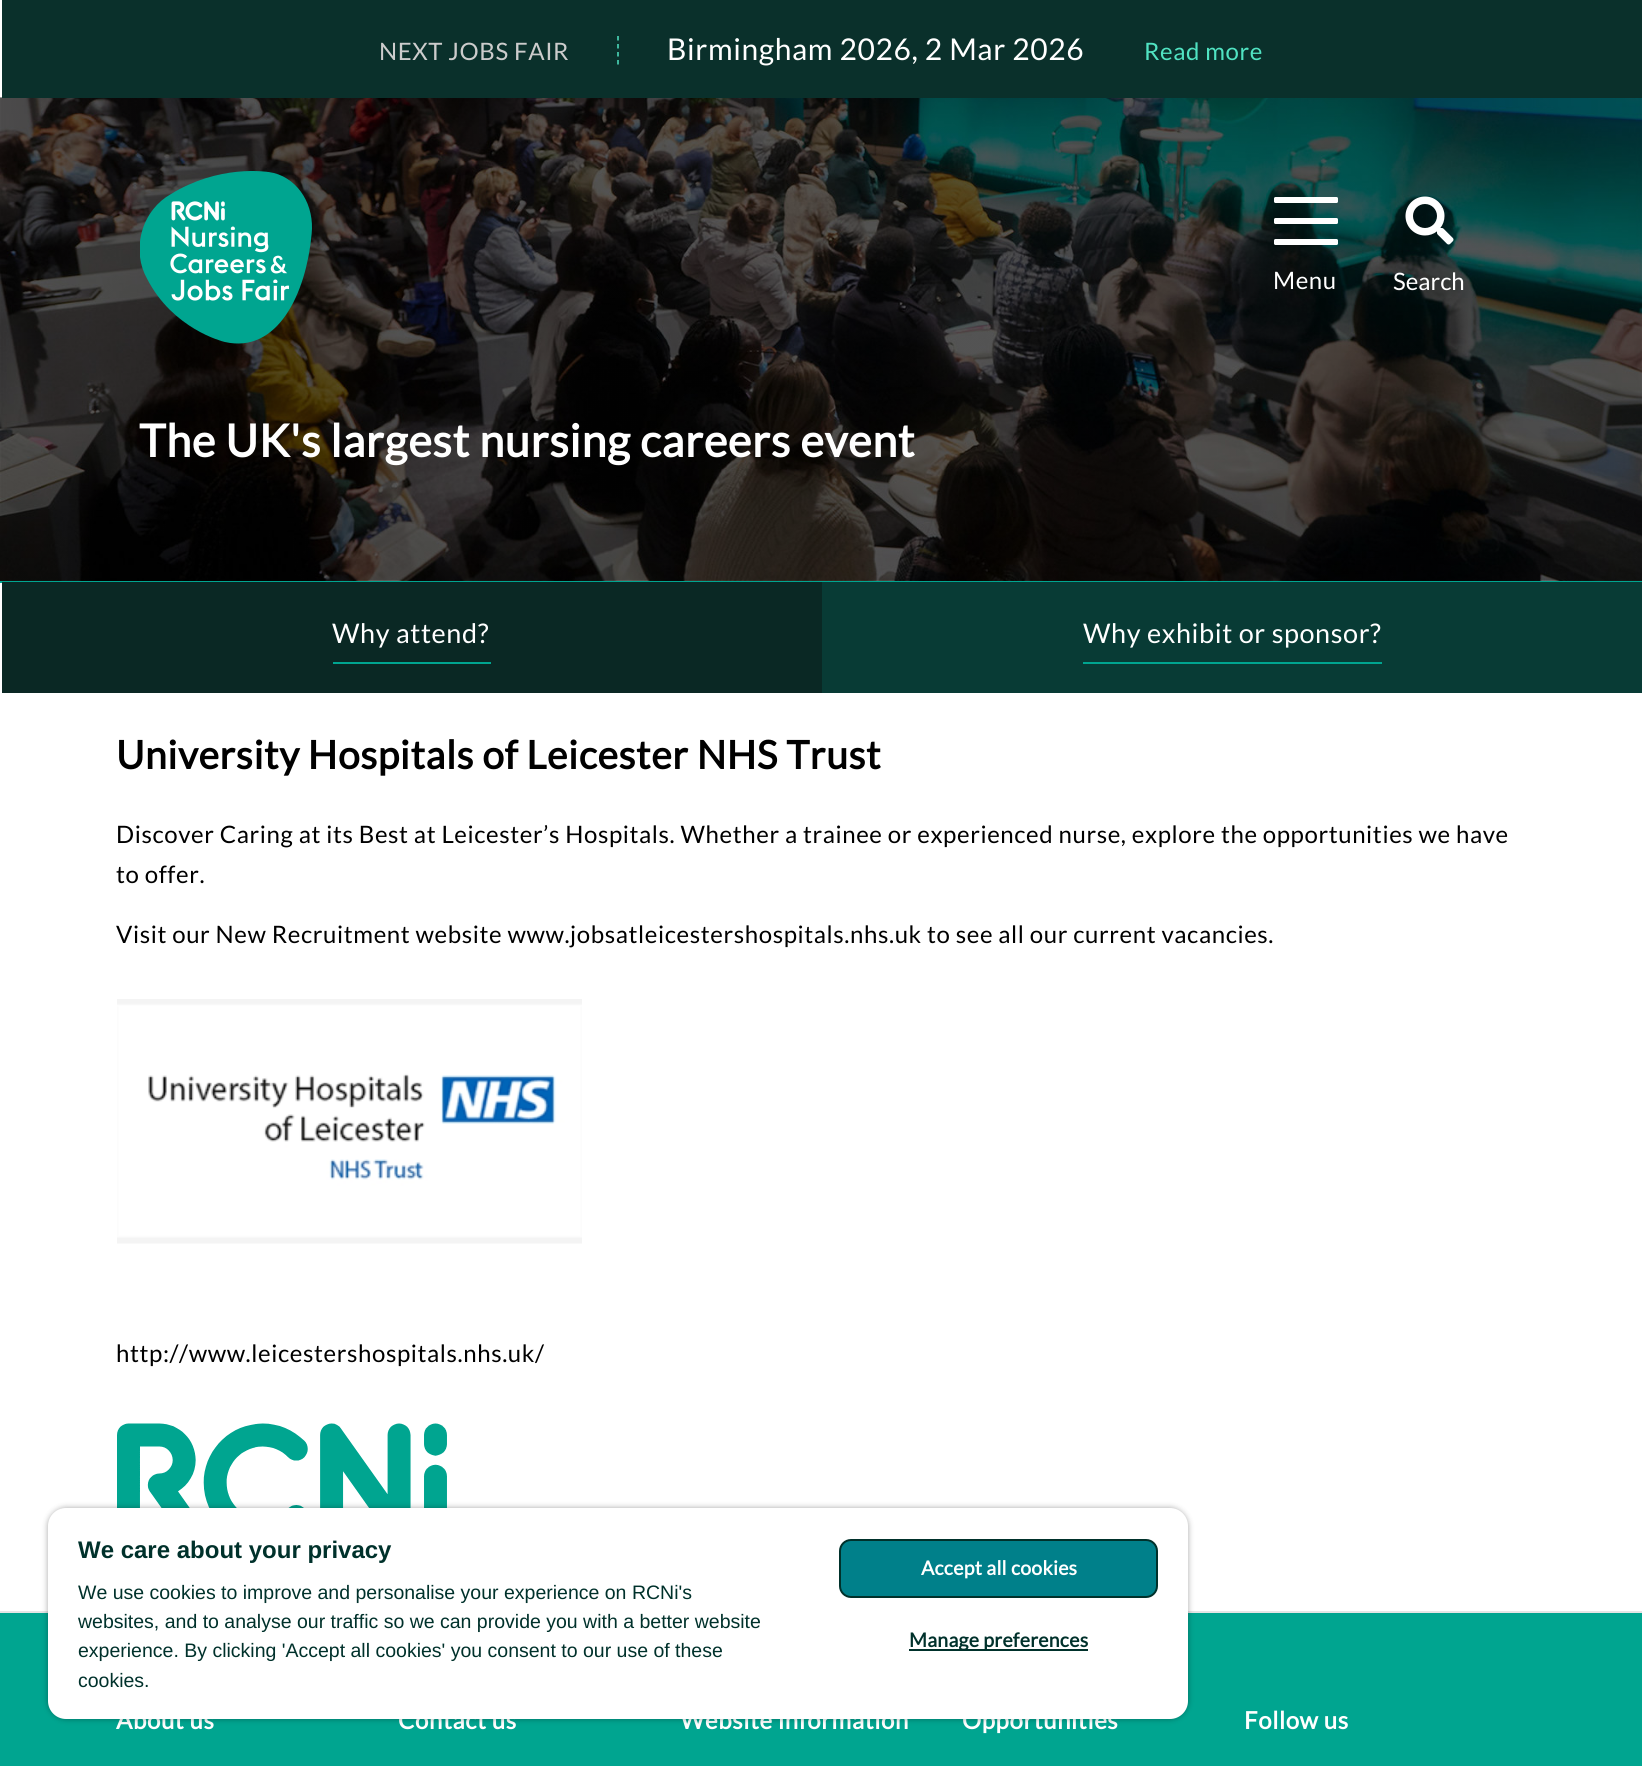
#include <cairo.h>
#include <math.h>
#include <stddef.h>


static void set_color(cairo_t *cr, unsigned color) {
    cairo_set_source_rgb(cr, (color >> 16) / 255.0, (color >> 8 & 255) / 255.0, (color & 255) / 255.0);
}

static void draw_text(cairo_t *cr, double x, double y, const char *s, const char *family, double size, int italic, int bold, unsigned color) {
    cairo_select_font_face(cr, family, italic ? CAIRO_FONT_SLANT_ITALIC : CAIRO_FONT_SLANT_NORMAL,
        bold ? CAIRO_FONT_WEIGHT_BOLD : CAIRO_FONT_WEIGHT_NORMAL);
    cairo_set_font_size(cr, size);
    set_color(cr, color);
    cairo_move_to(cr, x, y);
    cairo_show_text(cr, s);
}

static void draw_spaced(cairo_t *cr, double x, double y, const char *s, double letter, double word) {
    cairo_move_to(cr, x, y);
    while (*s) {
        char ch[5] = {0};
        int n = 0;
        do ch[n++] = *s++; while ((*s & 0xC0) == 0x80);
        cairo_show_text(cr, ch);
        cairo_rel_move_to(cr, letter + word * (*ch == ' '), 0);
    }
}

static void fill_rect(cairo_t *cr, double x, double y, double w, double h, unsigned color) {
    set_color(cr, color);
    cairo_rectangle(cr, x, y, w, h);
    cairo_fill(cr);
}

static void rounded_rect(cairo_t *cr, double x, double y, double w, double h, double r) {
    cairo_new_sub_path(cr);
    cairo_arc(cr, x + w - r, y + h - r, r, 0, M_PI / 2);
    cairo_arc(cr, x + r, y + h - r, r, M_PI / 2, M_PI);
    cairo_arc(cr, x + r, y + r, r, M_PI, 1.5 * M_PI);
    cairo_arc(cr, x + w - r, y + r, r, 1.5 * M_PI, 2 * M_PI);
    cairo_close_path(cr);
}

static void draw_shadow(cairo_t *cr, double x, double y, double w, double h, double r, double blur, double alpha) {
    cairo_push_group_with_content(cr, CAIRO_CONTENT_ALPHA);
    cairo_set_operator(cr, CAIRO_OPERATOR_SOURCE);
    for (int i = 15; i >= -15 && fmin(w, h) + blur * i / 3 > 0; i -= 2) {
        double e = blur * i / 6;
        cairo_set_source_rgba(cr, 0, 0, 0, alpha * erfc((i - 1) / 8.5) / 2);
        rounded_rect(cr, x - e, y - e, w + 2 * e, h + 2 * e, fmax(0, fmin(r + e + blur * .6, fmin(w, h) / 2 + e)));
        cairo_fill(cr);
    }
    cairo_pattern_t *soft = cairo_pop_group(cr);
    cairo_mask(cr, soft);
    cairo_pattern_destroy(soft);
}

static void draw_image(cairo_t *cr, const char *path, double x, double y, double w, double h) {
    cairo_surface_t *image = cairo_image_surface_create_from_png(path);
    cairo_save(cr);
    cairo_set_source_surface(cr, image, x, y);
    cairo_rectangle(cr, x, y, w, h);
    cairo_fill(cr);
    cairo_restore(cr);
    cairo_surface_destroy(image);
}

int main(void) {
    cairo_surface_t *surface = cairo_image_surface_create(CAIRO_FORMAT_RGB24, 1642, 1766);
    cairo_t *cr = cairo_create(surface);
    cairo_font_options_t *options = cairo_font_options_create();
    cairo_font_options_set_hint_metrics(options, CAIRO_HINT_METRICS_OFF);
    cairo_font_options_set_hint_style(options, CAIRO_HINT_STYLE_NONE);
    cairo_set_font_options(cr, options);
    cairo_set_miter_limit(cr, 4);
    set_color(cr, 0xFFFFFF);
    cairo_paint(cr);
    draw_image(cr, "assets/img1.png", 0, 97, 1642, 484);
    fill_rect(cr, 2, 0, 1640, 98, 0x0A302B);
    cairo_select_font_face(cr, "Lato", CAIRO_FONT_SLANT_NORMAL, CAIRO_FONT_WEIGHT_NORMAL);
    cairo_set_font_size(cr, 24);
    set_color(cr, 0xCCCCCC);
    draw_spaced(cr, 379, 60, "NEXT JOBS FAIR", 0.6, 0);
    cairo_new_path(cr);
    cairo_move_to(cr, 618, 36);
    cairo_line_to(cr, 618, 64.5);
    set_color(cr, 0x50E3C2);
    cairo_set_line_width(cr, 1.5);
    cairo_set_dash(cr, (double[]){4.5, 3.5}, 2, 0);
    cairo_stroke(cr);
    cairo_set_font_size(cr, 30);
    set_color(cr, 0xFFFFFF);
    draw_spaced(cr, 667, 60, "Birmingham 2026, 2 Mar 2026", 0.6, 0);
    cairo_set_font_size(cr, 24);
    set_color(cr, 0x50E3C2);
    draw_spaced(cr, 1144, 60, "Read more", 0.6, 0);
    fill_rect(cr, 0, 581, 1642, 2, 0x00A590);
    draw_image(cr, "assets/img2.png", 140, 171, 172, 173);
    set_color(cr, 0xFFFFFF);
    rounded_rect(cr, 1274, 197, 64, 6, 1.5);
    cairo_fill(cr);
    rounded_rect(cr, 1274, 218, 64, 6, 1.5);
    cairo_fill(cr);
    rounded_rect(cr, 1274, 239, 64, 6, 1.5);
    cairo_fill(cr);
    draw_spaced(cr, 1273, 289, "Menu", 0.6, 0);
    draw_image(cr, "assets/img3.png", 1405, 196, 49, 49);
    draw_text(cr, 1393, 290, "Search", "Lato", 24, 0, 0, 0xFFFFFF);
    cairo_select_font_face(cr, "Lato", CAIRO_FONT_SLANT_NORMAL, CAIRO_FONT_WEIGHT_BOLD);
    cairo_set_font_size(cr, 45);
    draw_spaced(cr, 139, 457, "The UK's largest nursing careers event", 0.6, 0);
    fill_rect(cr, 2, 582, 820, 111, 0x0A2824);
    cairo_select_font_face(cr, "Lato", CAIRO_FONT_SLANT_NORMAL, CAIRO_FONT_WEIGHT_NORMAL);
    cairo_set_font_size(cr, 27);
    set_color(cr, 0xFFFFFF);
    draw_spaced(cr, 332, 643, "Why attend?", 0.6, 0);
    fill_rect(cr, 333, 662, 158, 2, 0x00A590);
    fill_rect(cr, 822, 582, 820, 111, 0x083B35);
    set_color(cr, 0xFFFFFF);
    draw_spaced(cr, 1083, 643, "Why exhibit or sponsor?", 0.6, 0);
    fill_rect(cr, 1083, 662, 299, 2, 0x00A590);
    cairo_select_font_face(cr, "Lato", CAIRO_FONT_SLANT_NORMAL, CAIRO_FONT_WEIGHT_BOLD);
    cairo_set_font_size(cr, 39);
    set_color(cr, 0x000000);
    draw_spaced(cr, 116, 769, "University Hospitals of Leicester NHS Trust", 0.6, 0);
    cairo_select_font_face(cr, "Lato", CAIRO_FONT_SLANT_NORMAL, CAIRO_FONT_WEIGHT_NORMAL);
    cairo_set_font_size(cr, 24);
    draw_spaced(cr, 116, 843, "Discover Caring at its Best at Leicester’s Hospitals. Whether a trainee or experienced nurse, explore the opportunities we have", 0.6, 0);
    draw_spaced(cr, 116, 883, "to offer.", 0.6, 0);
    draw_spaced(cr, 116, 943, "Visit our New Recruitment website www.jobsatleicestershospitals.nhs.uk to see all our current vacancies.", 0.6, 0);
    draw_image(cr, "assets/img4.png", 117, 999, 465, 245);
    draw_spaced(cr, 116, 1362, "http://www.leicestershospitals.nhs.uk/", 0.6, 0);
    draw_image(cr, "assets/img5.png", 117, 1423, 330, 85);
    fill_rect(cr, 0, 1613, 1642, 153, 0x00A590);
    fill_rect(cr, 0, 1611, 1642, 2, 0xE5E5E5);
    cairo_select_font_face(cr, "Lato", CAIRO_FONT_SLANT_NORMAL, CAIRO_FONT_WEIGHT_BOLD);
    set_color(cr, 0xFFFFFF);
    draw_spaced(cr, 116, 1729, "About us", 0.6, 0);
    draw_spaced(cr, 398, 1729, "Contact us", 0.6, 0);
    draw_spaced(cr, 680, 1729, "Website information", 0.6, 0);
    draw_spaced(cr, 962, 1729, "Opportunities", 0.6, 0);
    draw_spaced(cr, 1244, 1729, "Follow us", 0.6, 0);
    set_color(cr, 0x000000);
    draw_shadow(cr, 48, 1508, 1140, 211, 18, 3, 0.35);
    set_color(cr, 0xFFFFFF);
    rounded_rect(cr, 48, 1508, 1140, 211, 18);
    cairo_fill(cr);
    draw_text(cr, 78, 1558, "We care about your privacy", "Liberation Sans", 24, 0, 1, 0x00312B);
    draw_text(cr, 78, 1599, "We use cookies to improve and personalise your experience on RCNi's", "Liberation Sans", 19.5, 0, 0, 0x00312B);
    draw_text(cr, 78, 1628, "websites, and to analyse our traffic so we can provide you with a better website", "Liberation Sans", 19.5, 0, 0, 0x00312B);
    draw_text(cr, 78, 1657, "experience. By clicking 'Accept all cookies' you consent to our use of these", "Liberation Sans", 19.5, 0, 0, 0x00312B);
    draw_text(cr, 78, 1687, "cookies.", "Liberation Sans", 19.5, 0, 0, 0x00312B);
    set_color(cr, 0x00808A);
    rounded_rect(cr, 840, 1540, 317, 57, 11);
    cairo_fill_preserve(cr);
    set_color(cr, 0x00312B);
    cairo_set_line_width(cr, 2);
    cairo_set_dash(cr, NULL, 0, 0);
    cairo_stroke(cr);
    cairo_select_font_face(cr, "Lato", CAIRO_FONT_SLANT_NORMAL, CAIRO_FONT_WEIGHT_BOLD);
    set_color(cr, 0xFFFFFF);
    draw_spaced(cr, 921, 1575, "Accept all cookies", 0.25, 0);
    fill_rect(cr, 909, 1649, 179, 2, 0x00312B);
    draw_spaced(cr, 909, 1647, "Manage preferences", 0.25, 0);
    cairo_surface_write_to_png(surface, "output.png");
    cairo_font_options_destroy(options);
    cairo_destroy(cr);
    cairo_surface_destroy(surface);
    return 0;
}
